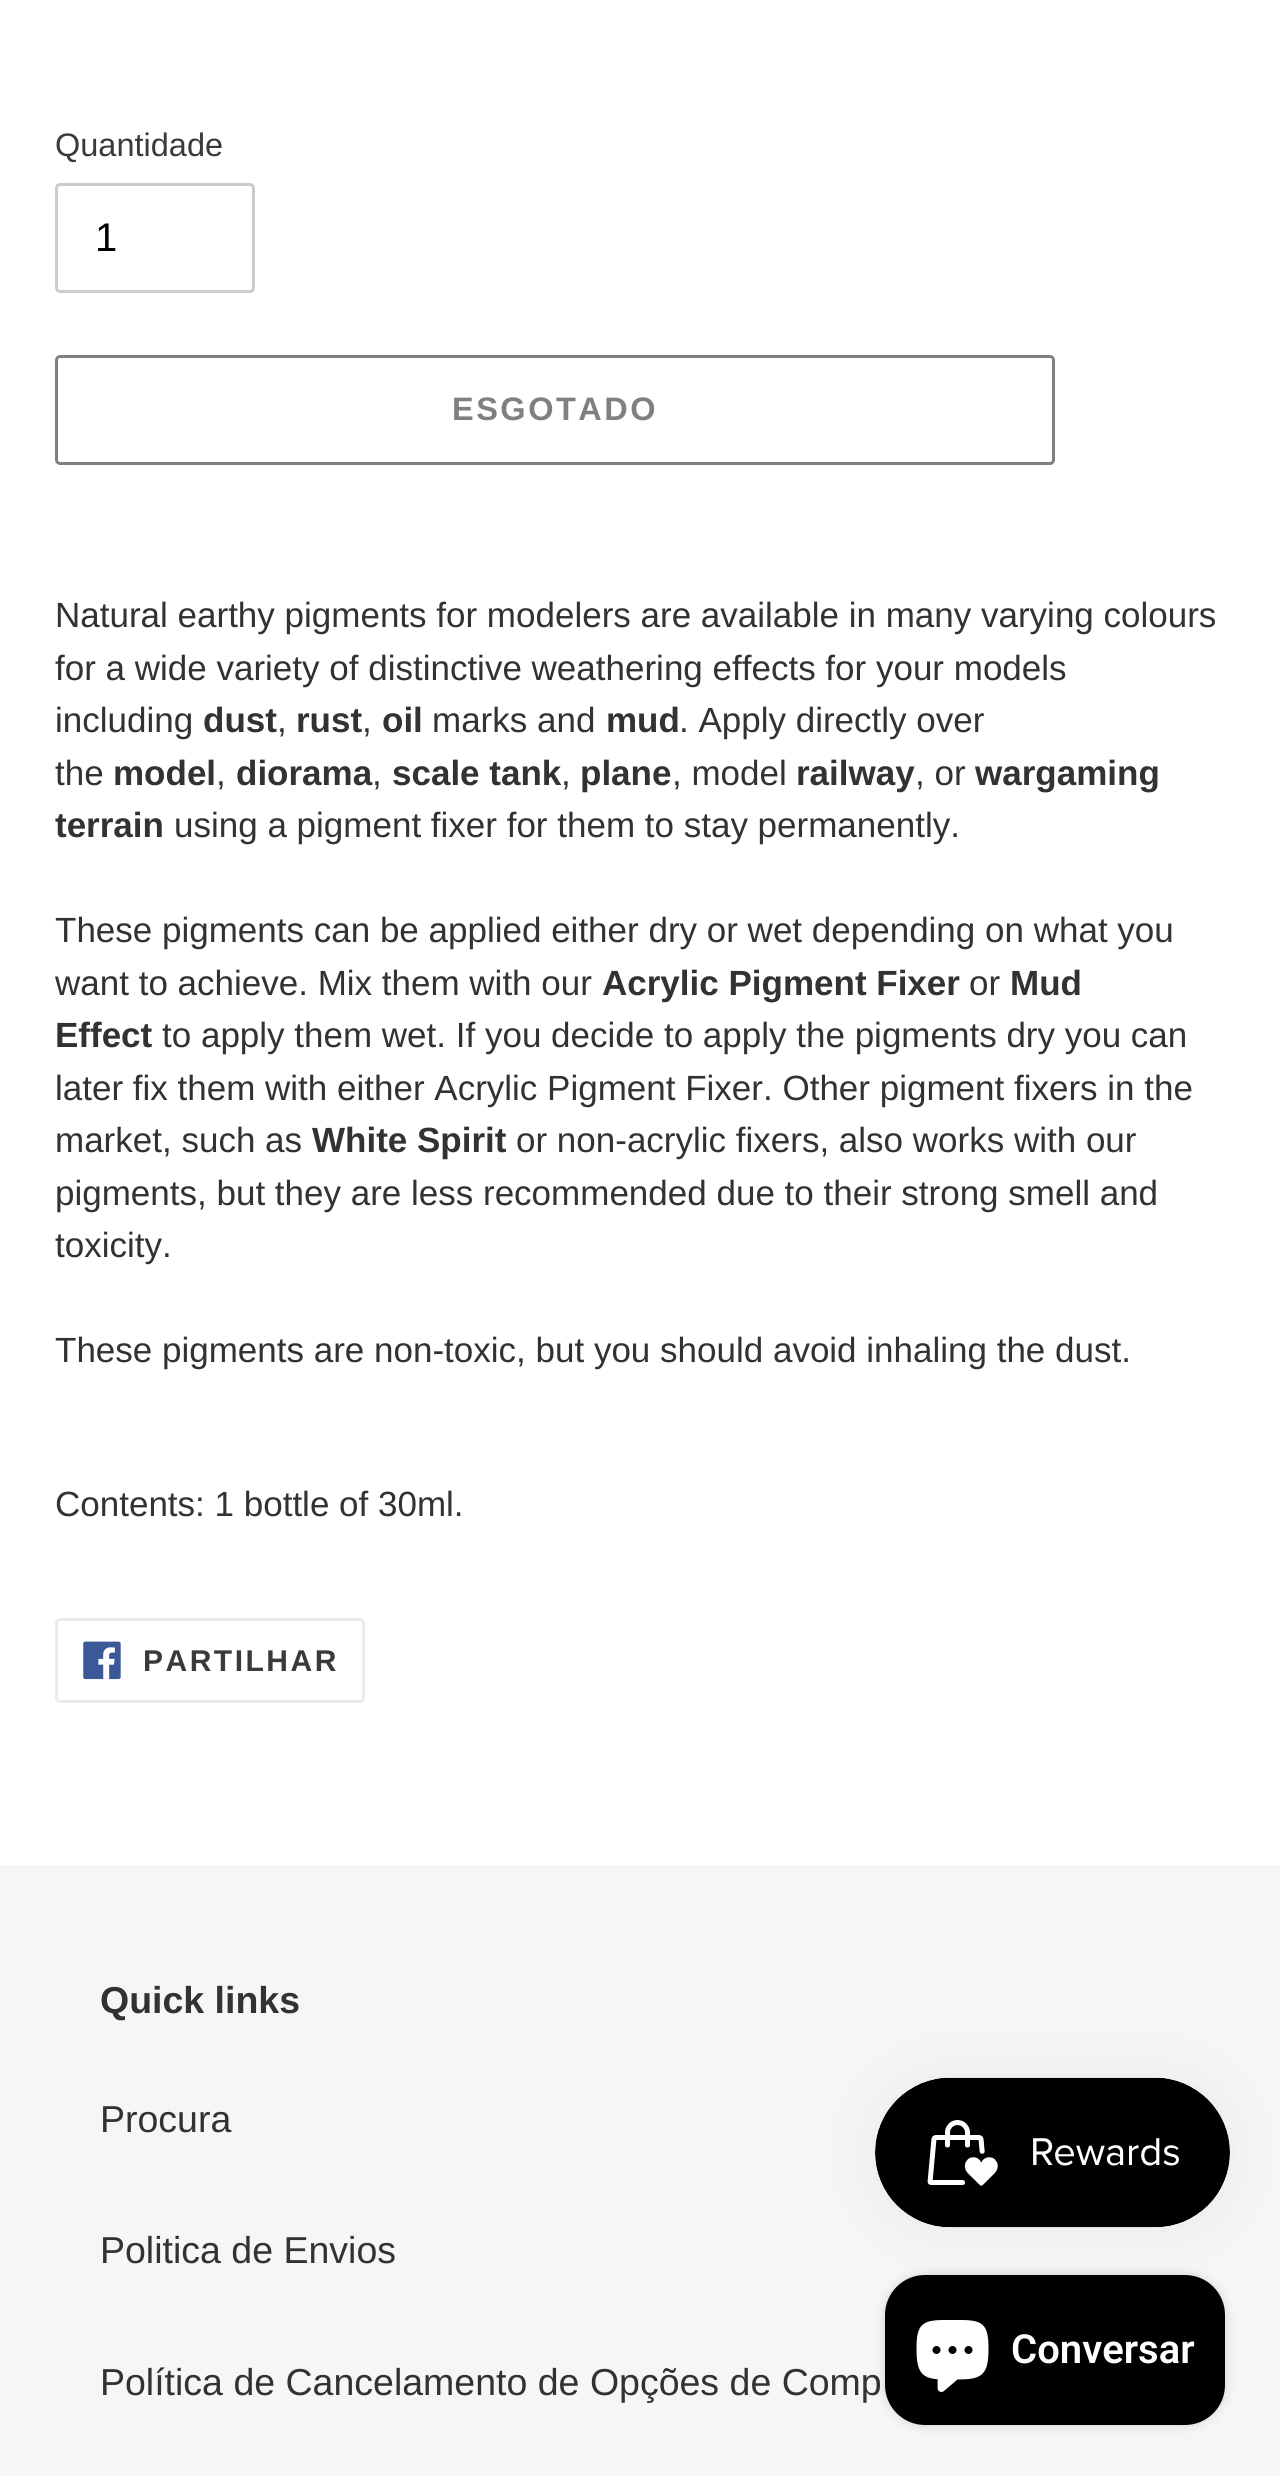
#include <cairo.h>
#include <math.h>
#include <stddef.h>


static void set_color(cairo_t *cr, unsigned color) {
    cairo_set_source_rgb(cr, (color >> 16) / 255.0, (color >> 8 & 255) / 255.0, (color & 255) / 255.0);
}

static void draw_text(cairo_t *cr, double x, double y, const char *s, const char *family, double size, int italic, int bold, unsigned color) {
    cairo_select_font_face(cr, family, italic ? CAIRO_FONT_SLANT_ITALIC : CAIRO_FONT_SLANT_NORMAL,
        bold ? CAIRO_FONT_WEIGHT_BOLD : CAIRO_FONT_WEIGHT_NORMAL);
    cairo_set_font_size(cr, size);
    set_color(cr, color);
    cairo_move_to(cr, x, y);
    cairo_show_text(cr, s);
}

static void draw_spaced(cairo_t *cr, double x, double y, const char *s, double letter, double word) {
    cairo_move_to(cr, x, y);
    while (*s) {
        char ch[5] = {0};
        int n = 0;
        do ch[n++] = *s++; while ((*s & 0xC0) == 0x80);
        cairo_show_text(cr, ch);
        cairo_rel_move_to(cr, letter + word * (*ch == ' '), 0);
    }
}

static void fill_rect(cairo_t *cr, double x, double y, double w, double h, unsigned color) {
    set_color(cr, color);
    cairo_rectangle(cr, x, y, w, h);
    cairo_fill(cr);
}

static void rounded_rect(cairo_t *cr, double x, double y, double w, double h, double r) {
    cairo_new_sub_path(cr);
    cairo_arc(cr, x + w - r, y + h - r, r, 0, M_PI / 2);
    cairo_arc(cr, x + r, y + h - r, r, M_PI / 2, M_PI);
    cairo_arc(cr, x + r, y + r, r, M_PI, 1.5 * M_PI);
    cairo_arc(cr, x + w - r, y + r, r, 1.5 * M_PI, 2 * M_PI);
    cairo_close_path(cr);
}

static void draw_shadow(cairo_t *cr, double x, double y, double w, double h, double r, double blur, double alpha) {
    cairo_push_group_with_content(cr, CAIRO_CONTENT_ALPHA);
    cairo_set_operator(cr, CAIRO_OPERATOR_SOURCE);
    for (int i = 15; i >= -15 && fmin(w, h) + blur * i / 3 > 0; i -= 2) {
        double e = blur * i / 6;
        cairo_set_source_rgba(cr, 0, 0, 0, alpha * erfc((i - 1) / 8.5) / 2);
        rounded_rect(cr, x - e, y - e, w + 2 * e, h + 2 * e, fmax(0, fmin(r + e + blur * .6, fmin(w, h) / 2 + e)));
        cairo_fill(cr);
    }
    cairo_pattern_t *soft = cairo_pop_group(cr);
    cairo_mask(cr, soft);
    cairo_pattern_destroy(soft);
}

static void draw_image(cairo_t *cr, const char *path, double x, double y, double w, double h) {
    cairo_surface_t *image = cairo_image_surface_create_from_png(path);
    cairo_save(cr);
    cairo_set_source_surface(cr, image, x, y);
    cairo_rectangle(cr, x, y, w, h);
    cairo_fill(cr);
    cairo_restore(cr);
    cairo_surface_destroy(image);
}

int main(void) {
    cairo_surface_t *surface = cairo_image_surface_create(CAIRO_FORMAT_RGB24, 1280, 2476);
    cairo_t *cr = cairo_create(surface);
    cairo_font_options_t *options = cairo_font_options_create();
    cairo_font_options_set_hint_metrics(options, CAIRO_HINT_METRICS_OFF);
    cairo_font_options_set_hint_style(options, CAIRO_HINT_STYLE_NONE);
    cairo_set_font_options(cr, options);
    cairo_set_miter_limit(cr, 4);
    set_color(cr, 0xFFFFFF);
    cairo_paint(cr);
    draw_text(cr, 55, 156, "Quantidade", "Liberation Sans", 32.5, 0, 0, 0x3A3A3A);
    rounded_rect(cr, 56.5, 184.5, 197, 107, 3.5);
    set_color(cr, 0xCCCCCC);
    cairo_set_line_width(cr, 3);
    cairo_stroke(cr);
    draw_text(cr, 95, 251, "1", "Liberation Sans", 40, 0, 0, 0x000000);
    rounded_rect(cr, 56.5, 356.5, 997, 107, 3.5);
    set_color(cr, 0x808080);
    cairo_stroke(cr);
    cairo_select_font_face(cr, "Liberation Sans", CAIRO_FONT_SLANT_NORMAL, CAIRO_FONT_WEIGHT_BOLD);
    cairo_set_font_size(cr, 32.5);
    draw_spaced(cr, 452, 420, "ESGOTADO", 2.5, 0);
    draw_text(cr, 55, 627, "Natural earthy pigments for modelers are available in many varying colours", "Liberation Sans", 35, 0, 0, 0x333232);
    draw_text(cr, 55, 680, "for a wide variety of distinctive weathering effects for your models", "Liberation Sans", 35, 0, 0, 0x333232);
    draw_text(cr, 55, 732, "including", "Liberation Sans", 35, 0, 0, 0x333232);
    draw_text(cr, 203, 732, "dust", "Liberation Sans", 35, 0, 1, 0x333232);
    draw_text(cr, 277, 732, ",", "Liberation Sans", 35, 0, 0, 0x333232);
    draw_text(cr, 296, 732, "rust", "Liberation Sans", 35, 0, 1, 0x333232);
    draw_text(cr, 362, 732, ",", "Liberation Sans", 35, 0, 0, 0x333232);
    draw_text(cr, 382, 732, "oil", "Liberation Sans", 35, 0, 1, 0x333232);
    draw_text(cr, 432, 732, "marks and", "Liberation Sans", 35, 0, 0, 0x333232);
    draw_text(cr, 606, 732, "mud", "Liberation Sans", 35, 0, 1, 0x333232);
    draw_text(cr, 679, 732, ". Apply directly over", "Liberation Sans", 35, 0, 0, 0x333232);
    draw_text(cr, 55, 785, "the", "Liberation Sans", 35, 0, 0, 0x333232);
    draw_text(cr, 113, 785, "model", "Liberation Sans", 35, 0, 1, 0x333232);
    draw_text(cr, 216, 785, ",", "Liberation Sans", 35, 0, 0, 0x333232);
    draw_text(cr, 236, 785, "diorama", "Liberation Sans", 35, 0, 1, 0x333232);
    draw_text(cr, 372, 785, ",", "Liberation Sans", 35, 0, 0, 0x333232);
    draw_text(cr, 392, 785, "scale tank", "Liberation Sans", 35, 0, 1, 0x333232);
    draw_text(cr, 561, 785, ",", "Liberation Sans", 35, 0, 0, 0x333232);
    draw_text(cr, 580, 785, "plane", "Liberation Sans", 35, 0, 1, 0x333232);
    draw_text(cr, 672, 785, ", model", "Liberation Sans", 35, 0, 0, 0x333232);
    draw_text(cr, 796, 785, "railway", "Liberation Sans", 35, 0, 1, 0x333232);
    draw_text(cr, 915, 785, ", or", "Liberation Sans", 35, 0, 0, 0x333232);
    draw_text(cr, 975, 785, "wargaming", "Liberation Sans", 35, 0, 1, 0x333232);
    draw_text(cr, 55, 837, "terrain", "Liberation Sans", 35, 0, 1, 0x333232);
    draw_text(cr, 174, 837, "using a pigment fixer for them to stay permanently.", "Liberation Sans", 35, 0, 0, 0x333232);
    draw_text(cr, 55, 942, "These pigments can be applied either dry or wet depending on what you", "Liberation Sans", 35, 0, 0, 0x333232);
    draw_text(cr, 55, 995, "want to achieve. Mix them with our", "Liberation Sans", 35, 0, 0, 0x333232);
    draw_text(cr, 602, 995, "Acrylic Pigment Fixer", "Liberation Sans", 35, 0, 1, 0x333232);
    draw_text(cr, 969, 995, "or", "Liberation Sans", 35, 0, 0, 0x333232);
    draw_text(cr, 1010, 995, "Mud", "Liberation Sans", 35, 0, 1, 0x333232);
    draw_text(cr, 55, 1047, "Effect", "Liberation Sans", 35, 0, 1, 0x333232);
    draw_text(cr, 162, 1047, "to apply them wet. If you decide to apply the pigments dry you can", "Liberation Sans", 35, 0, 0, 0x333232);
    draw_text(cr, 55, 1100, "later fix them with either Acrylic Pigment Fixer. Other pigment fixers in the", "Liberation Sans", 35, 0, 0, 0x333232);
    draw_text(cr, 55, 1152, "market, such as", "Liberation Sans", 35, 0, 0, 0x333232);
    draw_text(cr, 312, 1152, "White Spirit", "Liberation Sans", 35, 0, 1, 0x333232);
    draw_text(cr, 516, 1152, "or non-acrylic fixers, also works with our", "Liberation Sans", 35, 0, 0, 0x333232);
    draw_text(cr, 55, 1205, "pigments, but they are less recommended due to their strong smell and", "Liberation Sans", 35, 0, 0, 0x333232);
    draw_text(cr, 55, 1257, "toxicity.", "Liberation Sans", 35, 0, 0, 0x333232);
    draw_text(cr, 55, 1362, "These pigments are non-toxic, but you should avoid inhaling the dust.", "Liberation Sans", 35, 0, 0, 0x333232);
    draw_text(cr, 55, 1516, "Contents: 1 bottle of 30ml.", "Liberation Sans", 35, 0, 0, 0x333232);
    rounded_rect(cr, 56.5, 1619.5, 307, 82, 3.5);
    set_color(cr, 0xEBEBEB);
    cairo_stroke(cr);
    draw_image(cr, "assets/img1.png", 83, 1641, 38, 39);
    cairo_select_font_face(cr, "Liberation Sans", CAIRO_FONT_SLANT_NORMAL, CAIRO_FONT_WEIGHT_BOLD);
    cairo_set_font_size(cr, 30);
    set_color(cr, 0x3A3A3A);
    draw_spaced(cr, 143, 1671, "PARTILHAR", 2.5, 0);
    fill_rect(cr, 0, 1865, 1280, 611, 0xF6F6F6);
    draw_text(cr, 100, 2013, "Quick links", "Liberation Sans", 37.5, 0, 1, 0x333232);
    draw_text(cr, 100, 2132, "Procura", "Liberation Sans", 37.5, 0, 0, 0x333232);
    draw_text(cr, 100, 2263, "Politica de Envios", "Liberation Sans", 37.5, 0, 0, 0x333232);
    draw_text(cr, 100, 2395, "Política de Cancelamento de Opções de Comp", "Liberation Sans", 37.5, 0, 0, 0x333232);
    set_color(cr, 0x000000);
    draw_shadow(cr, 885, 2275, 340, 150, 40, 6, 0.15);
    set_color(cr, 0x000000);
    rounded_rect(cr, 885, 2275, 340, 150, 40);
    cairo_fill(cr);
    draw_image(cr, "assets/img3.png", 916, 2320, 73, 72);
    set_color(cr, 0x000000);
    draw_shadow(cr, 875, 2078, 355, 150, 75, 31, 0.05);
    draw_image(cr, "assets/img2.png", 875, 2077, 355, 151);
    draw_text(cr, 1011, 2363, "Conversar", "Roboto SemiBold", 40, 0, 0, 0xFFFFFF);
    cairo_surface_write_to_png(surface, "output.png");
    cairo_font_options_destroy(options);
    cairo_destroy(cr);
    cairo_surface_destroy(surface);
    return 0;
}
